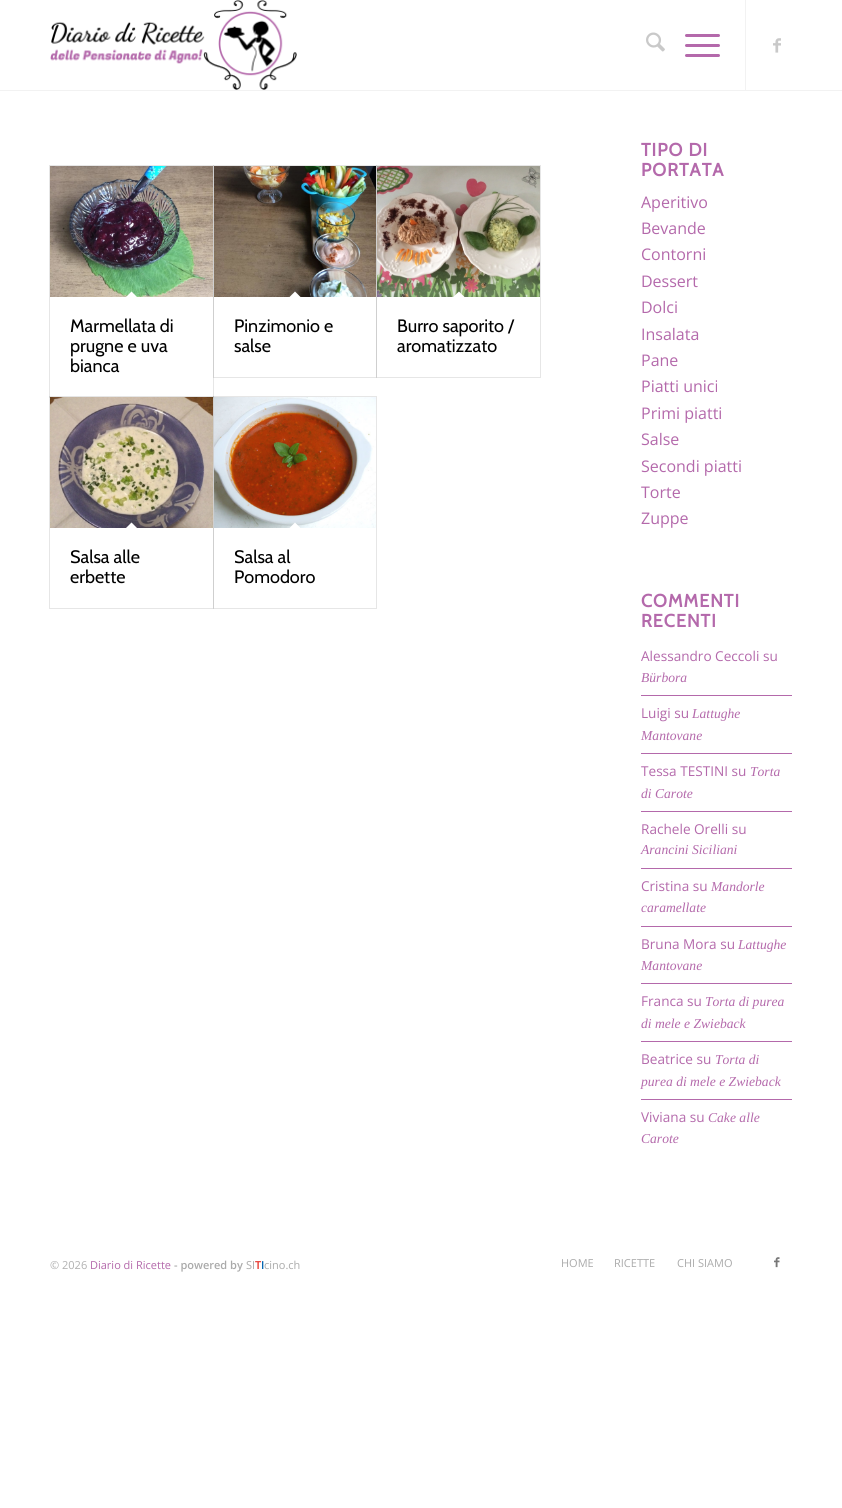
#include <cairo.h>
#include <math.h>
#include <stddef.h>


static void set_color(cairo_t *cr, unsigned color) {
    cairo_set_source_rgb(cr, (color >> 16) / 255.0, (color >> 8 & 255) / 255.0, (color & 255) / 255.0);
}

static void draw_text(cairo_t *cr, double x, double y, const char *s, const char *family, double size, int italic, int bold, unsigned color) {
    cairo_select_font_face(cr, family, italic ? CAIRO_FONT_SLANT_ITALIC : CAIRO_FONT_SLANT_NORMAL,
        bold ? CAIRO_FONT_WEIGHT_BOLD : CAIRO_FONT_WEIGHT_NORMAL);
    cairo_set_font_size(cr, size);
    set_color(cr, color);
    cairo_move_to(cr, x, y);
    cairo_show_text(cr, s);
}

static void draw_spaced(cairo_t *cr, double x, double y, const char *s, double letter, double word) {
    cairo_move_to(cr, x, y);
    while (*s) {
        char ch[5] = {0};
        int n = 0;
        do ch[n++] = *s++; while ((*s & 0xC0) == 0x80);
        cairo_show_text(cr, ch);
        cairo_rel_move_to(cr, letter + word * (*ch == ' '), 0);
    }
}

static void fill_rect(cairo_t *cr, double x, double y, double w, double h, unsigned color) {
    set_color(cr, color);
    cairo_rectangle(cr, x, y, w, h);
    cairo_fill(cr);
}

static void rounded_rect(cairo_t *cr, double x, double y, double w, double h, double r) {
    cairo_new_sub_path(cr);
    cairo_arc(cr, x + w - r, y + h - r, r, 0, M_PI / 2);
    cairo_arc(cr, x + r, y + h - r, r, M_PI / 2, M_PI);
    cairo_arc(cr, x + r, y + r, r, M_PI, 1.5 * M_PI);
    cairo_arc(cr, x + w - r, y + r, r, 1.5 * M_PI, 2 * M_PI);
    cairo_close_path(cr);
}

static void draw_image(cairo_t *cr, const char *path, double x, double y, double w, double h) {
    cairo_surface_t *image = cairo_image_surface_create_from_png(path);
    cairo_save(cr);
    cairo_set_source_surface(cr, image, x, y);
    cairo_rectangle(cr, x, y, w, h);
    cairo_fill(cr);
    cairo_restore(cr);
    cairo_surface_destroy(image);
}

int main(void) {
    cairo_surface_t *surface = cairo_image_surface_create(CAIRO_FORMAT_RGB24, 842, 1508);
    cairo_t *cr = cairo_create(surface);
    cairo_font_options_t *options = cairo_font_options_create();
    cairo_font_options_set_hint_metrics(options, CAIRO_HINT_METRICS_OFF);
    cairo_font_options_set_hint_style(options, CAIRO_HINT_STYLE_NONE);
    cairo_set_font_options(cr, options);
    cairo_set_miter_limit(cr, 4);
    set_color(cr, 0xFFFFFF);
    cairo_paint(cr);
    fill_rect(cr, 0, 90, 842, 1, 0xF2F2F2);
    draw_image(cr, "assets/img1.png", 50, 0, 247, 90);
    fill_rect(cr, 745, 0, 1, 90, 0xF2F2F2);
    draw_image(cr, "assets/img2.png", 646, 32, 19, 20);
    set_color(cr, 0xB469AB);
    rounded_rect(cr, 685, 44, 35, 3, 1.5);
    cairo_fill(cr);
    rounded_rect(cr, 685, 34, 35, 3, 1.5);
    cairo_fill(cr);
    rounded_rect(cr, 685, 54, 35, 3, 1.5);
    cairo_fill(cr);
    draw_image(cr, "assets/img3.png", 773, 38, 8, 15);
    cairo_rectangle(cr, 49.5, 165.5, 164, 232);
    set_color(cr, 0xE6E6E6);
    cairo_set_line_width(cr, 1);
    cairo_stroke(cr);
    draw_image(cr, "assets/img4.png", 50, 166, 163, 131);
    set_color(cr, 0xFFFFFF);
    cairo_new_path(cr);
    cairo_move_to(cr, 131.5, 291.5);
    cairo_line_to(cr, 138.5, 298.5);
    cairo_line_to(cr, 131.5, 305.5);
    cairo_line_to(cr, 124.5, 298.5);
    cairo_close_path(cr);
    cairo_fill(cr);
    draw_text(cr, 70, 332, "Marmellata di", "Cabin", 18, 0, 0, 0x000000);
    draw_text(cr, 70, 352, "prugne e uva", "Cabin", 18, 0, 0, 0x000000);
    draw_text(cr, 70, 372, "bianca", "Cabin", 18, 0, 0, 0x000000);
    cairo_rectangle(cr, 213.5, 165.5, 163, 212);
    cairo_set_source_rgba(cr, 0, 0, 0, 0.1);
    cairo_stroke(cr);
    draw_image(cr, "assets/img5.png", 214, 166, 162, 131);
    set_color(cr, 0xFFFFFF);
    cairo_new_path(cr);
    cairo_move_to(cr, 295, 291.5);
    cairo_line_to(cr, 302, 298.5);
    cairo_line_to(cr, 295, 305.5);
    cairo_line_to(cr, 288, 298.5);
    cairo_close_path(cr);
    cairo_fill(cr);
    draw_text(cr, 234, 332, "Pinzimonio e", "Cabin", 18, 0, 0, 0x000000);
    draw_text(cr, 234, 352, "salse", "Cabin", 18, 0, 0, 0x000000);
    cairo_rectangle(cr, 376.5, 165.5, 164, 212);
    cairo_set_source_rgba(cr, 0, 0, 0, 0.1);
    cairo_stroke(cr);
    draw_image(cr, "assets/img6.png", 377, 166, 163, 131);
    set_color(cr, 0xFFFFFF);
    cairo_new_path(cr);
    cairo_move_to(cr, 459, 291.5);
    cairo_line_to(cr, 466, 298.5);
    cairo_line_to(cr, 459, 305.5);
    cairo_line_to(cr, 451.5, 298.5);
    cairo_close_path(cr);
    cairo_fill(cr);
    draw_text(cr, 397, 332, "Burro saporito /", "Cabin", 18, 0, 0, 0x000000);
    draw_text(cr, 397, 352, "aromatizzato", "Cabin", 18, 0, 0, 0x000000);
    cairo_rectangle(cr, 49.5, 396.5, 164, 212);
    cairo_set_source_rgba(cr, 0, 0, 0, 0.1);
    cairo_stroke(cr);
    fill_rect(cr, 50, 397, 163, 1, 0xFFFFFF);
    draw_image(cr, "assets/img7.png", 50, 397, 163, 131);
    cairo_new_path(cr);
    cairo_move_to(cr, 131.5, 522.5);
    cairo_line_to(cr, 138.5, 529.5);
    cairo_line_to(cr, 131.5, 536.5);
    cairo_line_to(cr, 124.5, 529.5);
    cairo_close_path(cr);
    cairo_fill(cr);
    draw_text(cr, 70, 563, "Salsa alle", "Cabin", 18, 0, 0, 0x000000);
    draw_text(cr, 70, 583, "erbette", "Cabin", 18, 0, 0, 0x000000);
    cairo_rectangle(cr, 213.5, 396.5, 163, 212);
    cairo_set_source_rgba(cr, 0, 0, 0, 0.1);
    cairo_stroke(cr);
    draw_image(cr, "assets/img8.png", 214, 397, 162, 131);
    set_color(cr, 0xFFFFFF);
    cairo_new_path(cr);
    cairo_move_to(cr, 295, 522.5);
    cairo_line_to(cr, 302, 529.5);
    cairo_line_to(cr, 295, 536.5);
    cairo_line_to(cr, 288, 529.5);
    cairo_close_path(cr);
    cairo_fill(cr);
    draw_text(cr, 234, 563, "Salsa al", "Cabin", 18, 0, 0, 0x000000);
    draw_text(cr, 234, 583, "Pomodoro", "Cabin", 18, 0, 0, 0x000000);
    cairo_select_font_face(cr, "Cabin", CAIRO_FONT_SLANT_NORMAL, CAIRO_FONT_WEIGHT_BOLD);
    set_color(cr, 0xB469AB);
    draw_spaced(cr, 641, 156, "TIPO DI", 1, 0);
    draw_spaced(cr, 641, 176, "PORTATA", 1, 0);
    draw_text(cr, 641, 208, "Aperitivo", "Open Sans", 16, 0, 0, 0xB469AB);
    draw_text(cr, 641, 234, "Bevande", "Open Sans", 16, 0, 0, 0xB469AB);
    draw_text(cr, 641, 260, "Contorni", "Open Sans", 16, 0, 0, 0xB469AB);
    draw_text(cr, 641, 287, "Dessert", "Open Sans", 16, 0, 0, 0xB469AB);
    draw_text(cr, 641, 313, "Dolci", "Open Sans", 16, 0, 0, 0xB469AB);
    draw_text(cr, 641, 340, "Insalata", "Open Sans", 16, 0, 0, 0xB469AB);
    draw_text(cr, 641, 366, "Pane", "Open Sans", 16, 0, 0, 0xB469AB);
    draw_text(cr, 641, 392, "Piatti unici", "Open Sans", 16, 0, 0, 0xB469AB);
    draw_text(cr, 641, 419, "Primi piatti", "Open Sans", 16, 0, 0, 0xB469AB);
    draw_text(cr, 641, 445, "Salse", "Open Sans", 16, 0, 0, 0xB469AB);
    draw_text(cr, 641, 472, "Secondi piatti", "Open Sans", 16, 0, 0, 0xB469AB);
    draw_text(cr, 641, 498, "Torte", "Open Sans", 16, 0, 0, 0xB469AB);
    draw_text(cr, 641, 524, "Zuppe", "Open Sans", 16, 0, 0, 0xB469AB);
    cairo_select_font_face(cr, "Cabin", CAIRO_FONT_SLANT_NORMAL, CAIRO_FONT_WEIGHT_BOLD);
    cairo_set_font_size(cr, 18);
    draw_spaced(cr, 641, 607, "COMMENTI", 1, 0);
    draw_spaced(cr, 641, 627, "RECENTI", 1, 0);
    draw_text(cr, 641, 661, "Alessandro Ceccoli su", "Open Sans", 13.6, 0, 0, 0xB469AB);
    draw_text(cr, 641, 682, "Bürbora", "Liberation Serif", 13.6, 1, 0, 0xB469AB);
    fill_rect(cr, 641, 695, 151, 1, 0xB469AB);
    draw_text(cr, 641, 718, "Luigi su", "Open Sans", 13.6, 0, 0, 0xB469AB);
    draw_text(cr, 692, 718, "Lattughe", "Liberation Serif", 13.6, 1, 0, 0xB469AB);
    draw_text(cr, 641, 740, "Mantovane", "Liberation Serif", 13.6, 1, 0, 0xB469AB);
    fill_rect(cr, 641, 753, 151, 1, 0xB469AB);
    draw_text(cr, 641, 776, "Tessa TESTINI su", "Open Sans", 13.6, 0, 0, 0xB469AB);
    draw_text(cr, 750, 776, "Torta", "Liberation Serif", 13.6, 1, 0, 0xB469AB);
    draw_text(cr, 641, 798, "di Carote", "Liberation Serif", 13.6, 1, 0, 0xB469AB);
    fill_rect(cr, 641, 811, 151, 1, 0xB469AB);
    draw_text(cr, 641, 834, "Rachele Orelli su", "Open Sans", 13.6, 0, 0, 0xB469AB);
    draw_text(cr, 641, 854, "Arancini Siciliani", "Liberation Serif", 13.6, 1, 0, 0xB469AB);
    fill_rect(cr, 641, 868, 151, 1, 0xB469AB);
    draw_text(cr, 641, 891, "Cristina su", "Open Sans", 13.6, 0, 0, 0xB469AB);
    draw_text(cr, 711, 891, "Mandorle", "Liberation Serif", 13.6, 1, 0, 0xB469AB);
    draw_text(cr, 641, 912, "caramellate", "Liberation Serif", 13.6, 1, 0, 0xB469AB);
    fill_rect(cr, 641, 926, 151, 1, 0xB469AB);
    draw_text(cr, 641, 949, "Bruna Mora su", "Open Sans", 13.6, 0, 0, 0xB469AB);
    draw_text(cr, 738, 949, "Lattughe", "Liberation Serif", 13.6, 1, 0, 0xB469AB);
    draw_text(cr, 641, 970, "Mantovane", "Liberation Serif", 13.6, 1, 0, 0xB469AB);
    fill_rect(cr, 641, 983, 151, 1, 0xB469AB);
    draw_text(cr, 641, 1006, "Franca su", "Open Sans", 13.6, 0, 0, 0xB469AB);
    draw_text(cr, 705, 1006, "Torta di purea", "Liberation Serif", 13.6, 1, 0, 0xB469AB);
    draw_text(cr, 641, 1028, "di mele e Zwieback", "Liberation Serif", 13.6, 1, 0, 0xB469AB);
    fill_rect(cr, 641, 1041, 151, 1, 0xB469AB);
    draw_text(cr, 641, 1064, "Beatrice su", "Open Sans", 13.6, 0, 0, 0xB469AB);
    draw_text(cr, 715, 1064, "Torta di", "Liberation Serif", 13.6, 1, 0, 0xB469AB);
    draw_text(cr, 641, 1086, "purea di mele e Zwieback", "Liberation Serif", 13.6, 1, 0, 0xB469AB);
    fill_rect(cr, 641, 1099, 151, 1, 0xB469AB);
    draw_text(cr, 641, 1122, "Viviana su", "Open Sans", 13.6, 0, 0, 0xB469AB);
    draw_text(cr, 708, 1122, "Cake alle", "Liberation Serif", 13.6, 1, 0, 0xB469AB);
    draw_text(cr, 641, 1143, "Carote", "Liberation Serif", 13.6, 1, 0, 0xB469AB);
    draw_text(cr, 50, 1269, "© 2026", "Open Sans", 11, 0, 0, 0xB0B0B0);
    draw_text(cr, 90, 1269, "Diario di Ricette", "Open Sans", 11, 0, 0, 0xB469AB);
    draw_text(cr, 174, 1269, "- powered by", "Open Sans SemiBold", 11, 0, 0, 0xAAAAAA);
    draw_text(cr, 246, 1269, "SI", "Open Sans", 11, 0, 0, 0xAAAAAA);
    draw_text(cr, 255, 1269, "T", "Open Sans SemiBold", 11, 0, 0, 0xE63027);
    draw_text(cr, 261, 1269, "I", "Open Sans SemiBold", 11, 0, 0, 0x0062AE);
    draw_text(cr, 264, 1269, "cino.ch", "Open Sans", 11, 0, 0, 0xAAAAAA);
    draw_text(cr, 561, 1267, "HOME", "Open Sans", 11, 0, 0, 0xAAAAAA);
    draw_text(cr, 614, 1267, "RICETTE", "Open Sans", 11, 0, 0, 0xAAAAAA);
    draw_text(cr, 677, 1267, "CHI SIAMO", "Open Sans", 11, 0, 0, 0xAAAAAA);
    draw_image(cr, "assets/img9.png", 774, 1257, 6, 11);
    cairo_surface_write_to_png(surface, "output.png");
    cairo_font_options_destroy(options);
    cairo_destroy(cr);
    cairo_surface_destroy(surface);
    return 0;
}
